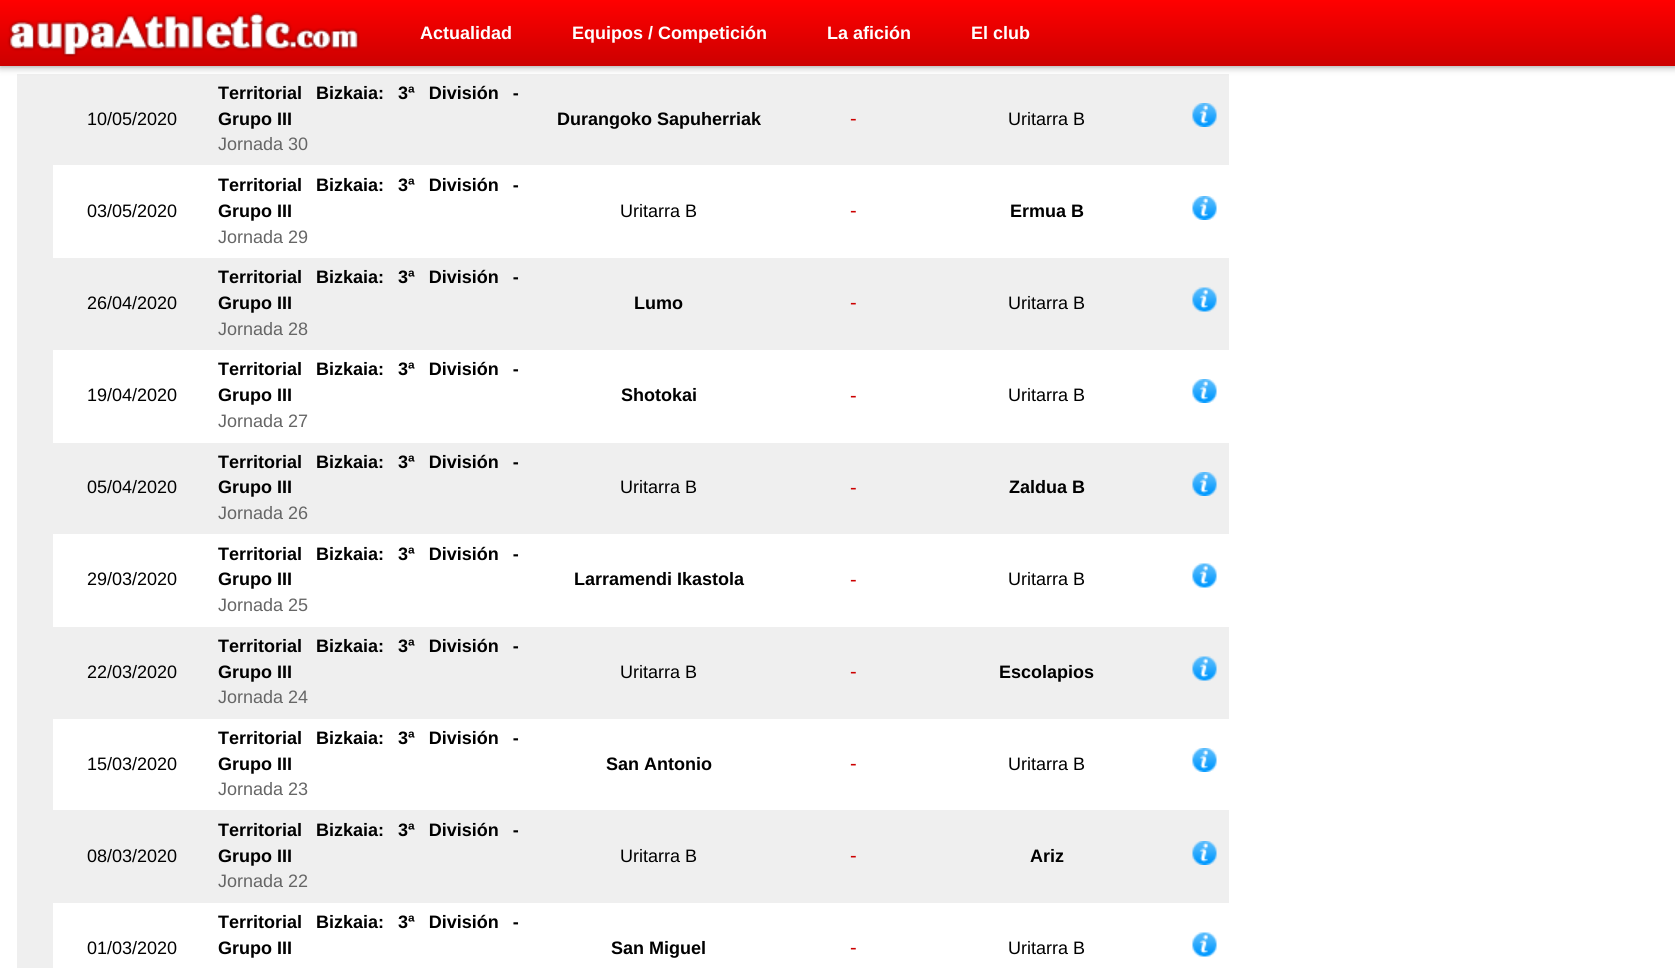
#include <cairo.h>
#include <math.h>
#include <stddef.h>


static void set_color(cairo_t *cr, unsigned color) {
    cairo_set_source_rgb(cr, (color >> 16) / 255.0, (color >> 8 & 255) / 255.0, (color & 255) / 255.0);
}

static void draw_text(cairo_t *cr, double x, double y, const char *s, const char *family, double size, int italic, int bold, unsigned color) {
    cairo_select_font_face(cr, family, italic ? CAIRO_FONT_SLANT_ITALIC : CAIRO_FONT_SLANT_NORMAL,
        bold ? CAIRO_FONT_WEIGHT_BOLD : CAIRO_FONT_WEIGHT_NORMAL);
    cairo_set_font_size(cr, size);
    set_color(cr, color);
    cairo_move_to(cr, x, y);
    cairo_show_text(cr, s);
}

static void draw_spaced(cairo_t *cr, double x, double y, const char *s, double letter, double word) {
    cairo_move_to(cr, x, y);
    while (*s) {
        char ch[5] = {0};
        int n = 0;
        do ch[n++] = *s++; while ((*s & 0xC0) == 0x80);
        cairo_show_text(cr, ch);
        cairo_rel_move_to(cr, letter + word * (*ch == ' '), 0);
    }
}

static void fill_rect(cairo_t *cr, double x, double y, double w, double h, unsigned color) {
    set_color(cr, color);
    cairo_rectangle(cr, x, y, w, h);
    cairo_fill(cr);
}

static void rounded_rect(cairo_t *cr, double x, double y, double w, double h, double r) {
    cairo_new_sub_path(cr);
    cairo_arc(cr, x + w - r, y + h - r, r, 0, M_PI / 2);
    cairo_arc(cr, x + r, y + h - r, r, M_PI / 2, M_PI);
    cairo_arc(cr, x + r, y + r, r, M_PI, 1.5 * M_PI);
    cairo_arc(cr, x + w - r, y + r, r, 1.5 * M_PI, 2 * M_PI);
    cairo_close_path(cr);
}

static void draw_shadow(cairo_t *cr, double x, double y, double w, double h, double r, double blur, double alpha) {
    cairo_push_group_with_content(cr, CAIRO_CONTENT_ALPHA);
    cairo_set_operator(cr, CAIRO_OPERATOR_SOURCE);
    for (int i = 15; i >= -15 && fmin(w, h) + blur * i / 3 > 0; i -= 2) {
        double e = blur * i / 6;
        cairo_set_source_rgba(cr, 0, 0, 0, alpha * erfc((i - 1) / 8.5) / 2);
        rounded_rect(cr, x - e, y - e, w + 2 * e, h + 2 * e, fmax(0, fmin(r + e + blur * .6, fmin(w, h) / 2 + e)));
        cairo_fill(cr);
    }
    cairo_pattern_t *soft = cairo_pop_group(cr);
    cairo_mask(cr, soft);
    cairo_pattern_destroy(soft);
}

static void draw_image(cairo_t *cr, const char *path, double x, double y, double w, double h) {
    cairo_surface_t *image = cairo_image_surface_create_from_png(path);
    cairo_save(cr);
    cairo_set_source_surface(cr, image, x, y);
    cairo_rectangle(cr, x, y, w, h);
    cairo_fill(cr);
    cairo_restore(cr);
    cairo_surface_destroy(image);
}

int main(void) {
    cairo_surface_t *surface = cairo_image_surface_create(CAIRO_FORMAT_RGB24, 1675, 968);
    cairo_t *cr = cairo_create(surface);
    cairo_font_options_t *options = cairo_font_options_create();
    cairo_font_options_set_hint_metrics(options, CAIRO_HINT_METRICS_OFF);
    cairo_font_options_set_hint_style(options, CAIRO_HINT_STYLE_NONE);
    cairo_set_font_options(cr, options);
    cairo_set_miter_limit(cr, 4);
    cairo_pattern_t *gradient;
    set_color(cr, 0xFFFFFF);
    cairo_paint(cr);
    fill_rect(cr, 17, 74, 1212, 91, 0xEFEFEF);
    set_color(cr, 0x888888);
    draw_shadow(cr, 0, 0, 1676, 66, 0, 4, 1);
    gradient = cairo_pattern_create_linear(838, 0, 838, 66);
    cairo_pattern_add_color_stop_rgba(gradient, 0, 1, 0, 0, 1);
    cairo_pattern_add_color_stop_rgba(gradient, 1, 0.8, 0, 0, 1);
    cairo_set_source(cr, gradient);
    cairo_pattern_destroy(gradient);
    cairo_rectangle(cr, 0, 0, 1675, 66);
    cairo_fill(cr);
    draw_image(cr, "assets/img1.png", 7, 11, 353, 46);
    draw_text(cr, 420, 39, "Actualidad", "Liberation Sans", 18, 0, 1, 0xFFFFFF);
    draw_text(cr, 572, 39, "Equipos / Competición", "Liberation Sans", 18, 0, 1, 0xFFFFFF);
    draw_text(cr, 827, 39, "La afición", "Liberation Sans", 18, 0, 1, 0xFFFFFF);
    draw_text(cr, 971, 39, "El club", "Liberation Sans", 18, 0, 1, 0xFFFFFF);
    draw_text(cr, 87, 125, "10/05/2020", "Liberation Sans", 18, 0, 0, 0x000000);
    cairo_select_font_face(cr, "Liberation Sans", CAIRO_FONT_SLANT_NORMAL, CAIRO_FONT_WEIGHT_BOLD);
    draw_spaced(cr, 218, 99, "Territorial Bizkaia: 3ª División -", 0, 9);
    draw_text(cr, 218, 125, "Grupo III", "Liberation Sans", 18, 0, 1, 0x000000);
    draw_text(cr, 218, 150, "Jornada 30", "Liberation Sans", 18, 0, 0, 0x666666);
    draw_text(cr, 557, 125, "Durangoko Sapuherriak", "Liberation Sans", 18, 0, 1, 0x000000);
    draw_text(cr, 850, 125, "-", "Liberation Sans", 20, 0, 0, 0xCC0000);
    draw_text(cr, 1008, 125, "Uritarra B", "Liberation Sans", 18, 0, 0, 0x000000);
    draw_image(cr, "assets/img2.png", 1192, 103, 25, 24);
    fill_rect(cr, 17, 165, 36, 93, 0xEFEFEF);
    draw_text(cr, 87, 217, "03/05/2020", "Liberation Sans", 18, 0, 0, 0x000000);
    cairo_select_font_face(cr, "Liberation Sans", CAIRO_FONT_SLANT_NORMAL, CAIRO_FONT_WEIGHT_BOLD);
    draw_spaced(cr, 218, 191, "Territorial Bizkaia: 3ª División -", 0, 9);
    draw_text(cr, 218, 217, "Grupo III", "Liberation Sans", 18, 0, 1, 0x000000);
    draw_text(cr, 218, 243, "Jornada 29", "Liberation Sans", 18, 0, 0, 0x666666);
    draw_text(cr, 620, 217, "Uritarra B", "Liberation Sans", 18, 0, 0, 0x000000);
    draw_text(cr, 850, 217, "-", "Liberation Sans", 20, 0, 0, 0xCC0000);
    draw_text(cr, 1010, 217, "Ermua B", "Liberation Sans", 18, 0, 1, 0x000000);
    draw_image(cr, "assets/img3.png", 1192, 196, 25, 24);
    fill_rect(cr, 17, 258, 1212, 92, 0xEFEFEF);
    draw_text(cr, 87, 309, "26/04/2020", "Liberation Sans", 18, 0, 0, 0x000000);
    cairo_select_font_face(cr, "Liberation Sans", CAIRO_FONT_SLANT_NORMAL, CAIRO_FONT_WEIGHT_BOLD);
    draw_spaced(cr, 218, 283, "Territorial Bizkaia: 3ª División -", 0, 9);
    draw_text(cr, 218, 309, "Grupo III", "Liberation Sans", 18, 0, 1, 0x000000);
    draw_text(cr, 218, 335, "Jornada 28", "Liberation Sans", 18, 0, 0, 0x666666);
    draw_text(cr, 634, 309, "Lumo", "Liberation Sans", 18, 0, 1, 0x000000);
    draw_text(cr, 850, 309, "-", "Liberation Sans", 20, 0, 0, 0xCC0000);
    draw_text(cr, 1008, 309, "Uritarra B", "Liberation Sans", 18, 0, 0, 0x000000);
    draw_image(cr, "assets/img4.png", 1192, 287, 25, 25);
    fill_rect(cr, 17, 350, 36, 93, 0xEFEFEF);
    draw_text(cr, 87, 401, "19/04/2020", "Liberation Sans", 18, 0, 0, 0x000000);
    cairo_select_font_face(cr, "Liberation Sans", CAIRO_FONT_SLANT_NORMAL, CAIRO_FONT_WEIGHT_BOLD);
    draw_spaced(cr, 218, 375, "Territorial Bizkaia: 3ª División -", 0, 9);
    draw_text(cr, 218, 401, "Grupo III", "Liberation Sans", 18, 0, 1, 0x000000);
    draw_text(cr, 218, 427, "Jornada 27", "Liberation Sans", 18, 0, 0, 0x666666);
    draw_text(cr, 621, 401, "Shotokai", "Liberation Sans", 18, 0, 1, 0x000000);
    draw_text(cr, 850, 402, "-", "Liberation Sans", 20, 0, 0, 0xCC0000);
    draw_text(cr, 1008, 401, "Uritarra B", "Liberation Sans", 18, 0, 0, 0x000000);
    draw_image(cr, "assets/img3.png", 1192, 379, 25, 24);
    fill_rect(cr, 17, 443, 1212, 91, 0xEFEFEF);
    draw_text(cr, 87, 493, "05/04/2020", "Liberation Sans", 18, 0, 0, 0x000000);
    cairo_select_font_face(cr, "Liberation Sans", CAIRO_FONT_SLANT_NORMAL, CAIRO_FONT_WEIGHT_BOLD);
    draw_spaced(cr, 218, 468, "Territorial Bizkaia: 3ª División -", 0, 9);
    draw_text(cr, 218, 493, "Grupo III", "Liberation Sans", 18, 0, 1, 0x000000);
    draw_text(cr, 218, 519, "Jornada 26", "Liberation Sans", 18, 0, 0, 0x666666);
    draw_text(cr, 620, 493, "Uritarra B", "Liberation Sans", 18, 0, 0, 0x000000);
    draw_text(cr, 850, 494, "-", "Liberation Sans", 20, 0, 0, 0xCC0000);
    draw_text(cr, 1009, 493, "Zaldua B", "Liberation Sans", 18, 0, 1, 0x000000);
    draw_image(cr, "assets/img2.png", 1192, 472, 25, 24);
    fill_rect(cr, 17, 534, 36, 93, 0xEFEFEF);
    draw_text(cr, 87, 585, "29/03/2020", "Liberation Sans", 18, 0, 0, 0x000000);
    cairo_select_font_face(cr, "Liberation Sans", CAIRO_FONT_SLANT_NORMAL, CAIRO_FONT_WEIGHT_BOLD);
    draw_spaced(cr, 218, 560, "Territorial Bizkaia: 3ª División -", 0, 9);
    draw_text(cr, 218, 585, "Grupo III", "Liberation Sans", 18, 0, 1, 0x000000);
    draw_text(cr, 218, 611, "Jornada 25", "Liberation Sans", 18, 0, 0, 0x666666);
    draw_text(cr, 574, 585, "Larramendi Ikastola", "Liberation Sans", 18, 0, 1, 0x000000);
    draw_text(cr, 850, 586, "-", "Liberation Sans", 20, 0, 0, 0xCC0000);
    draw_text(cr, 1008, 585, "Uritarra B", "Liberation Sans", 18, 0, 0, 0x000000);
    draw_image(cr, "assets/img5.png", 1192, 563, 25, 25);
    fill_rect(cr, 17, 627, 1212, 92, 0xEFEFEF);
    draw_text(cr, 87, 678, "22/03/2020", "Liberation Sans", 18, 0, 0, 0x000000);
    cairo_select_font_face(cr, "Liberation Sans", CAIRO_FONT_SLANT_NORMAL, CAIRO_FONT_WEIGHT_BOLD);
    draw_spaced(cr, 218, 652, "Territorial Bizkaia: 3ª División -", 0, 9);
    draw_text(cr, 218, 678, "Grupo III", "Liberation Sans", 18, 0, 1, 0x000000);
    draw_text(cr, 218, 703, "Jornada 24", "Liberation Sans", 18, 0, 0, 0x666666);
    draw_text(cr, 620, 678, "Uritarra B", "Liberation Sans", 18, 0, 0, 0x000000);
    draw_text(cr, 850, 678, "-", "Liberation Sans", 20, 0, 0, 0xCC0000);
    draw_text(cr, 999, 678, "Escolapios", "Liberation Sans", 18, 0, 1, 0x000000);
    draw_image(cr, "assets/img4.png", 1192, 656, 25, 25);
    fill_rect(cr, 17, 719, 36, 91, 0xEFEFEF);
    draw_text(cr, 87, 770, "15/03/2020", "Liberation Sans", 18, 0, 0, 0x000000);
    cairo_select_font_face(cr, "Liberation Sans", CAIRO_FONT_SLANT_NORMAL, CAIRO_FONT_WEIGHT_BOLD);
    draw_spaced(cr, 218, 744, "Territorial Bizkaia: 3ª División -", 0, 9);
    draw_text(cr, 218, 770, "Grupo III", "Liberation Sans", 18, 0, 1, 0x000000);
    draw_text(cr, 218, 795, "Jornada 23", "Liberation Sans", 18, 0, 0, 0x666666);
    draw_text(cr, 606, 770, "San Antonio", "Liberation Sans", 18, 0, 1, 0x000000);
    draw_text(cr, 850, 770, "-", "Liberation Sans", 20, 0, 0, 0xCC0000);
    draw_text(cr, 1008, 770, "Uritarra B", "Liberation Sans", 18, 0, 0, 0x000000);
    draw_image(cr, "assets/img3.png", 1192, 748, 25, 24);
    fill_rect(cr, 17, 810, 1212, 93, 0xEFEFEF);
    draw_text(cr, 87, 862, "08/03/2020", "Liberation Sans", 18, 0, 0, 0x000000);
    cairo_select_font_face(cr, "Liberation Sans", CAIRO_FONT_SLANT_NORMAL, CAIRO_FONT_WEIGHT_BOLD);
    draw_spaced(cr, 218, 836, "Territorial Bizkaia: 3ª División -", 0, 9);
    draw_text(cr, 218, 862, "Grupo III", "Liberation Sans", 18, 0, 1, 0x000000);
    draw_text(cr, 218, 887, "Jornada 22", "Liberation Sans", 18, 0, 0, 0x666666);
    draw_text(cr, 620, 862, "Uritarra B", "Liberation Sans", 18, 0, 0, 0x000000);
    draw_text(cr, 850, 862, "-", "Liberation Sans", 20, 0, 0, 0xCC0000);
    draw_text(cr, 1030, 862, "Ariz", "Liberation Sans", 18, 0, 1, 0x000000);
    draw_image(cr, "assets/img2.png", 1192, 841, 25, 24);
    fill_rect(cr, 17, 903, 36, 65, 0xEFEFEF);
    draw_text(cr, 87, 954, "01/03/2020", "Liberation Sans", 18, 0, 0, 0x000000);
    cairo_select_font_face(cr, "Liberation Sans", CAIRO_FONT_SLANT_NORMAL, CAIRO_FONT_WEIGHT_BOLD);
    draw_spaced(cr, 218, 928, "Territorial Bizkaia: 3ª División -", 0, 9);
    draw_text(cr, 218, 954, "Grupo III", "Liberation Sans", 18, 0, 1, 0x000000);
    draw_text(cr, 611, 954, "San Miguel", "Liberation Sans", 18, 0, 1, 0x000000);
    draw_text(cr, 850, 954, "-", "Liberation Sans", 20, 0, 0, 0xCC0000);
    draw_text(cr, 1008, 954, "Uritarra B", "Liberation Sans", 18, 0, 0, 0x000000);
    draw_image(cr, "assets/img5.png", 1192, 932, 25, 25);
    cairo_surface_write_to_png(surface, "output.png");
    cairo_font_options_destroy(options);
    cairo_destroy(cr);
    cairo_surface_destroy(surface);
    return 0;
}
